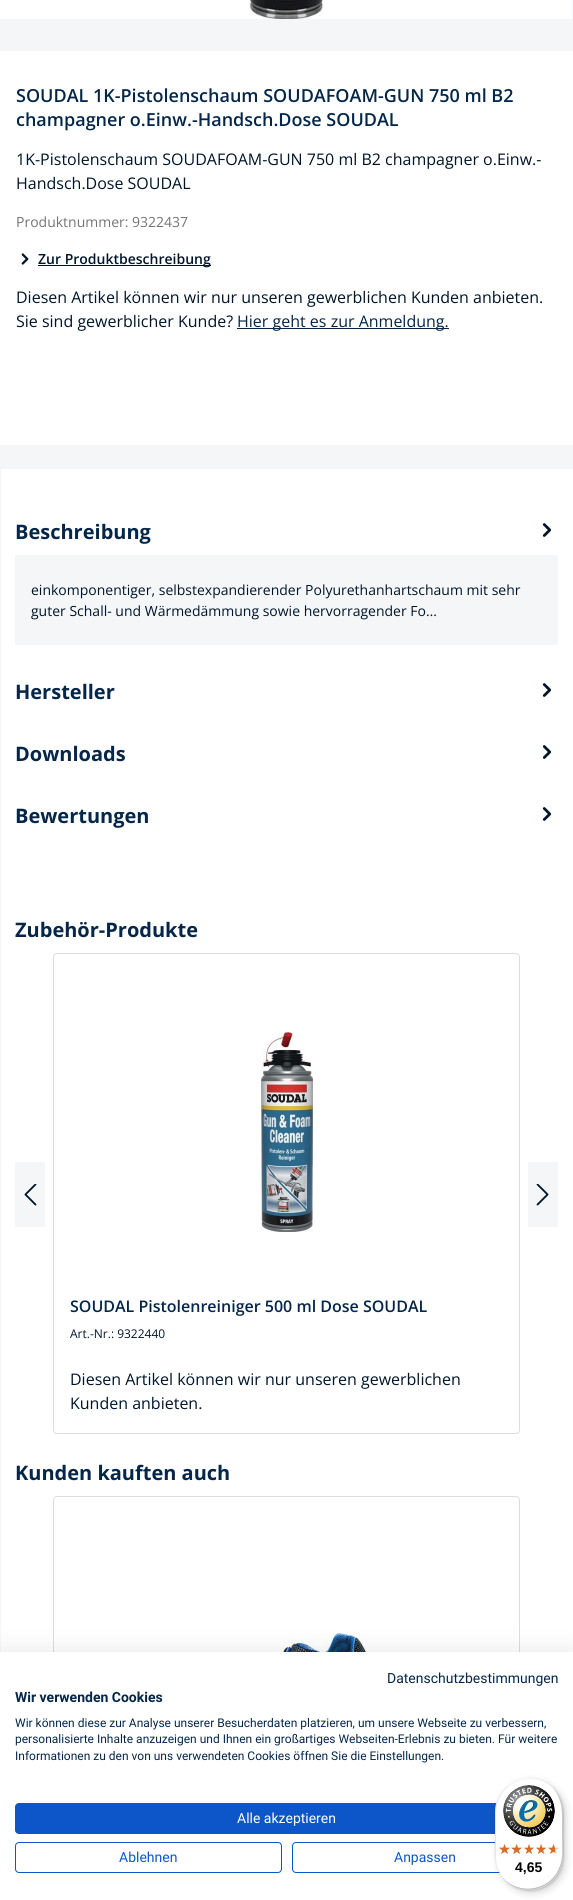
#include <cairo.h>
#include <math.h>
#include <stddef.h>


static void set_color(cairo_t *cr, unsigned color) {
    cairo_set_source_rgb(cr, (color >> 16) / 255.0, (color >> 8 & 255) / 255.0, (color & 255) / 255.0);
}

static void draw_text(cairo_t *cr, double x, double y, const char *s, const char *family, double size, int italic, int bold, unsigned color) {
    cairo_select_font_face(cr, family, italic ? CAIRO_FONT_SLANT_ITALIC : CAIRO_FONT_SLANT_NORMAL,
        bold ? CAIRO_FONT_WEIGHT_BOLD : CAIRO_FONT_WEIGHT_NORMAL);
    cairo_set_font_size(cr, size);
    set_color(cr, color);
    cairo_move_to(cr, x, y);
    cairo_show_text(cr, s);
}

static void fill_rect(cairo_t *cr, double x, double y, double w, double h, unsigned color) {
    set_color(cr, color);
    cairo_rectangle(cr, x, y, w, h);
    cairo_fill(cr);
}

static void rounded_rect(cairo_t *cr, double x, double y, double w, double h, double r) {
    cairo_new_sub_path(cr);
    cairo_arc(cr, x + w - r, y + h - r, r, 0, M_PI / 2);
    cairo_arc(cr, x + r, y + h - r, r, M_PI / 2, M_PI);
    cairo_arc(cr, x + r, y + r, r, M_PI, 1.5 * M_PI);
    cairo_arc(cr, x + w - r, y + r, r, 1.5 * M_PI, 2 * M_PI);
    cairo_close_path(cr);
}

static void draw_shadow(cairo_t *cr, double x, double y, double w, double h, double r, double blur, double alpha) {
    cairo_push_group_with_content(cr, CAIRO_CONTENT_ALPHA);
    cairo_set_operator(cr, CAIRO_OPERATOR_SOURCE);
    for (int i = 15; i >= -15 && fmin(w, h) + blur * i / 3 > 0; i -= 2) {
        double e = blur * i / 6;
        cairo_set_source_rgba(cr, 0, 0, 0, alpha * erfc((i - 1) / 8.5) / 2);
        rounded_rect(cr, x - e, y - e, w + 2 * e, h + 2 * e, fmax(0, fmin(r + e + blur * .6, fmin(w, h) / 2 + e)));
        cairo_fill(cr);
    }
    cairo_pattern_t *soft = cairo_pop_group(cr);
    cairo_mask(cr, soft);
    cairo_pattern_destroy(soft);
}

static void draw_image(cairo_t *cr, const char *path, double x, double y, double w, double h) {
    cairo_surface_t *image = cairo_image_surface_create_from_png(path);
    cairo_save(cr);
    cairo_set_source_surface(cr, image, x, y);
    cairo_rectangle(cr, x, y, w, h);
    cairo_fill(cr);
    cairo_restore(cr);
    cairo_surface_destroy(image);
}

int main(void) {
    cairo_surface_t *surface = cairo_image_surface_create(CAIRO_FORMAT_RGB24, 573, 1900);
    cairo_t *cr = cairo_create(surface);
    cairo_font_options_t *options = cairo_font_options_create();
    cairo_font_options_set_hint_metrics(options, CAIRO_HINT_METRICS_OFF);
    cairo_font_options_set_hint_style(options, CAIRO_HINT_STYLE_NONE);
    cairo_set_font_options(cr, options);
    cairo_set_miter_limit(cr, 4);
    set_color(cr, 0xF5F6F8);
    cairo_paint(cr);
    fill_rect(cr, 0, 0, 572, 19, 0xFFFFFF);
    draw_image(cr, "assets/img1.png", 249, 0, 75, 19);
    fill_rect(cr, 0, 51, 573, 394, 0xFFFFFF);
    draw_text(cr, 16, 102, "SOUDAL 1K-Pistolenschaum SOUDAFOAM-GUN 750 ml B2", "Open Sans SemiBold", 18, 0, 0, 0x042649);
    draw_text(cr, 16, 126, "champagner o.Einw.-Handsch.Dose SOUDAL", "Open Sans SemiBold", 18, 0, 0, 0x042649);
    draw_text(cr, 16, 165, "1K-Pistolenschaum SOUDAFOAM-GUN 750 ml B2 champagner o.Einw.-", "Open Sans", 16, 0, 0, 0x00152A);
    draw_text(cr, 16, 189, "Handsch.Dose SOUDAL", "Open Sans", 16, 0, 0, 0x00152A);
    draw_text(cr, 16, 227, "Produktnummer: 9322437", "Open Sans", 14, 0, 0, 0x757575);
    draw_image(cr, "assets/img2.png", 21, 253, 8, 12);
    fill_rect(cr, 38, 265, 173, 1, 0x00152A);
    draw_text(cr, 38, 264, "Zur Produktbeschreibung", "Open Sans SemiBold", 14, 0, 0, 0x00152A);
    draw_text(cr, 16, 303, "Diesen Artikel können wir nur unseren gewerblichen Kunden anbieten.", "Open Sans", 16, 0, 0, 0x00152A);
    draw_text(cr, 16, 327, "Sie sind gewerblicher Kunde?", "Open Sans", 16, 0, 0, 0x00152A);
    fill_rect(cr, 237, 328, 212, 1, 0x042649);
    draw_text(cr, 237, 327, "Hier geht es zur Anmeldung.", "Open Sans", 16, 0, 0, 0x042649);
    fill_rect(cr, 1, 469, 572, 1183, 0xFFFFFF);
    draw_text(cr, 15, 539, "Beschreibung", "Open Sans", 20, 0, 1, 0x042649);
    draw_image(cr, "assets/img3.png", 542, 523, 10, 14);
    fill_rect(cr, 15, 555, 543, 90, 0xF5F6F8);
    draw_text(cr, 31, 595, "einkomponentiger, selbstexpandierender Polyurethanhartschaum mit sehr", "Open Sans", 14, 0, 0, 0x00152A);
    draw_text(cr, 31, 616, "guter Schall- und Wärmedämmung sowie hervorragender Fo…", "Open Sans", 14, 0, 0, 0x00152A);
    draw_text(cr, 15, 699, "Hersteller", "Open Sans", 20, 0, 1, 0x042649);
    draw_image(cr, "assets/img3.png", 542, 683, 10, 14);
    draw_text(cr, 15, 761, "Downloads", "Open Sans", 20, 0, 1, 0x042649);
    draw_image(cr, "assets/img3.png", 542, 745, 10, 14);
    draw_text(cr, 15, 823, "Bewertungen", "Open Sans", 20, 0, 1, 0x042649);
    draw_image(cr, "assets/img3.png", 542, 807, 10, 14);
    draw_text(cr, 15, 937, "Zubehör-Produkte", "Open Sans", 20, 0, 1, 0x042649);
    fill_rect(cr, 15, 1162, 30, 65, 0xF5F6F8);
    draw_image(cr, "assets/img4.png", 24, 1184, 13, 22);
    fill_rect(cr, 528, 1162, 30, 65, 0xF5F6F8);
    draw_image(cr, "assets/img5.png", 536, 1184, 13, 22);
    rounded_rect(cr, 53.5, 953.5, 466, 480, 3.5);
    set_color(cr, 0xD9DEE3);
    cairo_set_line_width(cr, 1);
    cairo_stroke(cr);
    draw_image(cr, "assets/img6.png", 261, 1032, 52, 200);
    draw_text(cr, 70, 1312, "SOUDAL Pistolenreiniger 500 ml Dose SOUDAL", "Open Sans SemiBold", 16, 0, 0, 0x042649);
    draw_text(cr, 70, 1338, "Art.-Nr.: 9322440", "Open Sans", 12, 0, 0, 0x00152A);
    draw_text(cr, 70, 1385, "Diesen Artikel können wir nur unseren gewerblichen", "Open Sans", 16, 0, 0, 0x00152A);
    draw_text(cr, 70, 1409, "Kunden anbieten.", "Open Sans", 16, 0, 0, 0x00152A);
    draw_text(cr, 15, 1480, "Kunden kauften auch", "Open Sans", 20, 0, 1, 0x042649);
    rounded_rect(cr, 53.5, 1496.5, 466, 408, 3.5);
    set_color(cr, 0xD9DEE3);
    cairo_stroke(cr);
    draw_image(cr, "assets/img7.png", 187, 1631, 200, 21);
    set_color(cr, 0x000000);
    draw_shadow(cr, 0, 1652, 573, 248, 0, 12, 0.1);
    fill_rect(cr, 0, 1652, 573, 248, 0xFFFFFF);
    draw_text(cr, 387, 1683, "Datenschutzbestimmungen", "Roboto", 14, 0, 0, 0x042649);
    draw_text(cr, 15, 1702, "Wir verwenden Cookies", "Roboto", 14, 0, 1, 0x042649);
    draw_text(cr, 15, 1727, "Wir können diese zur Analyse unserer Besucherdaten platzieren, um unsere Webseite zu verbessern,", "Roboto", 12, 0, 0, 0x042649);
    draw_text(cr, 15, 1743, "personalisierte Inhalte anzuzeigen und Ihnen ein großartiges Webseiten-Erlebnis zu bieten. Für weitere", "Roboto", 12, 0, 0, 0x042649);
    draw_text(cr, 15, 1760, "Informationen zu den von uns verwendeten Cookies öffnen Sie die Einstellungen.", "Roboto", 12, 0, 0, 0x042649);
    set_color(cr, 0x0D56C9);
    rounded_rect(cr, 15.5, 1803.5, 542, 30, 3.5);
    cairo_fill_preserve(cr);
    cairo_stroke(cr);
    draw_text(cr, 237, 1823, "Alle akzeptieren", "Roboto", 14, 0, 0, 0xFFFFFF);
    rounded_rect(cr, 15.5, 1842.5, 266, 30, 3.5);
    set_color(cr, 0x0D56C9);
    cairo_stroke(cr);
    draw_text(cr, 119, 1862, "Ablehnen", "Roboto", 14, 0, 0, 0x0D56C9);
    rounded_rect(cr, 292.5, 1842.5, 265, 30, 3.5);
    cairo_stroke(cr);
    draw_text(cr, 394, 1862, "Anpassen", "Roboto", 14, 0, 0, 0x0D56C9);
    set_color(cr, 0x000000);
    draw_shadow(cr, 498, 1781, 68, 112, 34, 4, 0.15);
    draw_shadow(cr, 496, 1779, 68, 112, 34, 1, 0.15);
    set_color(cr, 0xFFFFFF);
    rounded_rect(cr, 495, 1778, 68, 112, 34);
    cairo_fill(cr);
    cairo_set_source_rgba(cr, 0, 0, 0, 0.1);
    cairo_new_path(cr);
    cairo_move_to(cr, 530, 1779);
    cairo_curve_to(cr, 538, 1779, 546, 1782, 552, 1787);
    cairo_curve_to(cr, 535, 1772, 507, 1778, 498, 1799);
    cairo_curve_to(cr, 493, 1809, 495, 1823, 495, 1834);
    cairo_curve_to(cr, 495, 1849, 492, 1866, 504, 1879);
    cairo_curve_to(cr, 499, 1873, 496, 1865, 496, 1857);
    cairo_line_to(cr, 496, 1813);
    cairo_curve_to(cr, 496, 1794, 511, 1779, 530, 1779);
    cairo_close_path(cr);
    cairo_fill(cr);
    cairo_set_source_rgba(cr, 0, 0, 0, 0.2);
    cairo_new_path(cr);
    cairo_move_to(cr, 506, 1881);
    cairo_curve_to(cr, 523, 1896, 551, 1890, 560, 1869);
    cairo_curve_to(cr, 565, 1859, 563, 1845, 563, 1834);
    cairo_curve_to(cr, 563, 1819, 566, 1802, 554, 1789);
    cairo_curve_to(cr, 564, 1802, 562, 1818, 562, 1833);
    cairo_curve_to(cr, 562, 1844, 564, 1858, 559, 1868);
    cairo_curve_to(cr, 551, 1889, 523, 1895, 506, 1881);
    cairo_close_path(cr);
    cairo_fill(cr);
    cairo_set_source_rgba(cr, 0.196, 0.196, 0.196, 0.2);
    cairo_new_path(cr);
    cairo_move_to(cr, 502, 1877);
    cairo_curve_to(cr, 509, 1885, 518, 1890, 529, 1890);
    cairo_curve_to(cr, 548, 1890, 563, 1875, 563, 1856);
    cairo_line_to(cr, 563, 1812);
    cairo_curve_to(cr, 563, 1801, 558, 1792, 550, 1785);
    cairo_curve_to(cr, 557, 1792, 562, 1801, 562, 1811);
    cairo_line_to(cr, 562, 1855);
    cairo_curve_to(cr, 562, 1874, 547, 1889, 528, 1889);
    cairo_curve_to(cr, 518, 1889, 509, 1884, 502, 1877);
    cairo_close_path(cr);
    cairo_fill(cr);
    cairo_set_source_rgba(cr, 1, 1, 1, 0.3);
    cairo_new_path(cr);
    cairo_move_to(cr, 529, 1778);
    cairo_curve_to(cr, 547, 1778, 562, 1793, 562, 1812);
    cairo_line_to(cr, 562, 1856);
    cairo_curve_to(cr, 562, 1874, 547, 1890, 528, 1890);
    cairo_line_to(cr, 529, 1890);
    cairo_curve_to(cr, 548, 1890, 563, 1875, 563, 1856);
    cairo_line_to(cr, 563, 1812);
    cairo_curve_to(cr, 563, 1793, 548, 1778, 529, 1778);
    cairo_close_path(cr);
    cairo_fill(cr);
    draw_image(cr, "assets/img8.png", 503, 1785, 52, 52);
    draw_image(cr, "assets/img9.png", 499, 1844, 11, 10);
    draw_image(cr, "assets/img10.png", 512, 1844, 10, 10);
    draw_image(cr, "assets/img11.png", 524, 1844, 10, 10);
    draw_image(cr, "assets/img12.png", 536, 1844, 11, 10);
    draw_image(cr, "assets/img12.png", 548, 1844, 11, 10);
    draw_image(cr, "assets/img13.png", 499, 1844, 11, 10);
    draw_image(cr, "assets/img14.png", 511, 1844, 11, 10);
    draw_image(cr, "assets/img15.png", 524, 1844, 10, 10);
    draw_image(cr, "assets/img16.png", 536, 1844, 10, 10);
    draw_image(cr, "assets/img17.png", 548, 1844, 7, 10);
    draw_text(cr, 515, 1872, "4,65", "Liberation Sans", 14, 0, 1, 0x000000);
    cairo_surface_write_to_png(surface, "output.png");
    cairo_font_options_destroy(options);
    cairo_destroy(cr);
    cairo_surface_destroy(surface);
    return 0;
}
